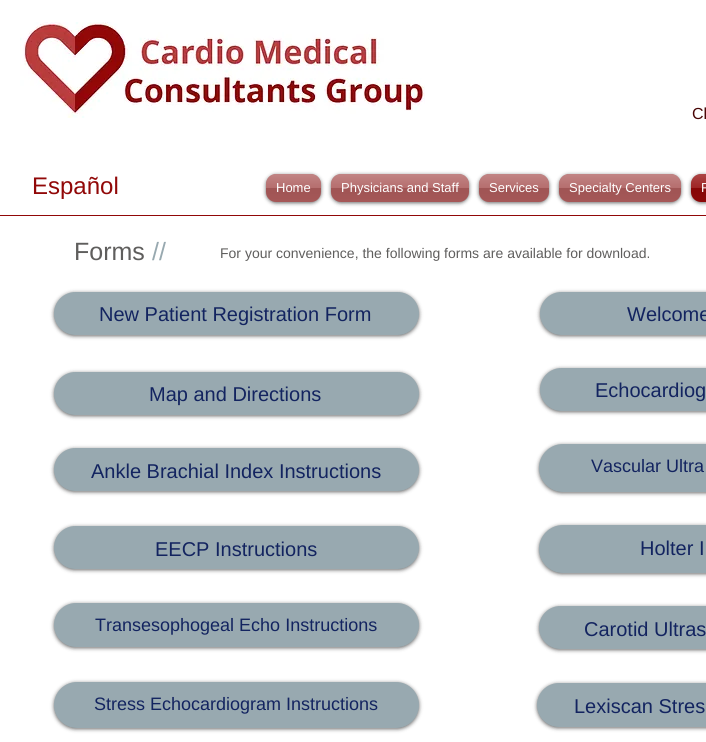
#include <cairo.h>
#include <math.h>
#include <stddef.h>


static void set_color(cairo_t *cr, unsigned color) {
    cairo_set_source_rgb(cr, (color >> 16) / 255.0, (color >> 8 & 255) / 255.0, (color & 255) / 255.0);
}

static void draw_text(cairo_t *cr, double x, double y, const char *s, const char *family, double size, int italic, int bold, unsigned color) {
    cairo_select_font_face(cr, family, italic ? CAIRO_FONT_SLANT_ITALIC : CAIRO_FONT_SLANT_NORMAL,
        bold ? CAIRO_FONT_WEIGHT_BOLD : CAIRO_FONT_WEIGHT_NORMAL);
    cairo_set_font_size(cr, size);
    set_color(cr, color);
    cairo_move_to(cr, x, y);
    cairo_show_text(cr, s);
}

static void fill_rect(cairo_t *cr, double x, double y, double w, double h, unsigned color) {
    set_color(cr, color);
    cairo_rectangle(cr, x, y, w, h);
    cairo_fill(cr);
}

static void rounded_rect(cairo_t *cr, double x, double y, double w, double h, double r) {
    cairo_new_sub_path(cr);
    cairo_arc(cr, x + w - r, y + h - r, r, 0, M_PI / 2);
    cairo_arc(cr, x + r, y + h - r, r, M_PI / 2, M_PI);
    cairo_arc(cr, x + r, y + r, r, M_PI, 1.5 * M_PI);
    cairo_arc(cr, x + w - r, y + r, r, 1.5 * M_PI, 2 * M_PI);
    cairo_close_path(cr);
}

static void draw_shadow(cairo_t *cr, double x, double y, double w, double h, double r, double blur, double alpha) {
    cairo_push_group_with_content(cr, CAIRO_CONTENT_ALPHA);
    cairo_set_operator(cr, CAIRO_OPERATOR_SOURCE);
    for (int i = 15; i >= -15 && fmin(w, h) + blur * i / 3 > 0; i -= 2) {
        double e = blur * i / 6;
        cairo_set_source_rgba(cr, 0, 0, 0, alpha * erfc((i - 1) / 8.5) / 2);
        rounded_rect(cr, x - e, y - e, w + 2 * e, h + 2 * e, fmax(0, fmin(r + e + blur * .6, fmin(w, h) / 2 + e)));
        cairo_fill(cr);
    }
    cairo_pattern_t *soft = cairo_pop_group(cr);
    cairo_mask(cr, soft);
    cairo_pattern_destroy(soft);
}

static void draw_image(cairo_t *cr, const char *path, double x, double y, double w, double h) {
    cairo_surface_t *image = cairo_image_surface_create_from_png(path);
    cairo_save(cr);
    cairo_set_source_surface(cr, image, x, y);
    cairo_rectangle(cr, x, y, w, h);
    cairo_fill(cr);
    cairo_restore(cr);
    cairo_surface_destroy(image);
}

int main(void) {
    cairo_surface_t *surface = cairo_image_surface_create(CAIRO_FORMAT_RGB24, 706, 742);
    cairo_t *cr = cairo_create(surface);
    cairo_font_options_t *options = cairo_font_options_create();
    cairo_font_options_set_hint_metrics(options, CAIRO_HINT_METRICS_OFF);
    cairo_font_options_set_hint_style(options, CAIRO_HINT_STYLE_NONE);
    cairo_set_font_options(cr, options);
    cairo_set_miter_limit(cr, 4);
    set_color(cr, 0xFFFFFF);
    cairo_paint(cr);
    draw_image(cr, "assets/img1.png", 20, 22, 405, 96);
    draw_text(cr, 692, 119, "Cl", "Liberation Sans", 16, 0, 0, 0x480404);
    draw_text(cr, 32, 194, "Español", "Liberation Sans", 24, 0, 0, 0x910808);
    set_color(cr, 0x000000);
    draw_shadow(cr, 266, 175, 55, 28, 10, 2, 0.6);
    set_color(cr, 0xAC5B5B);
    rounded_rect(cr, 266, 174, 55, 28, 10);
    cairo_fill(cr);
    draw_image(cr, "assets/img2.png", 266, 174, 55, 28);
    draw_text(cr, 276, 192, "Home", "Liberation Sans", 13, 0, 0, 0xFFFFFF);
    set_color(cr, 0x000000);
    draw_shadow(cr, 331, 175, 138, 28, 10, 2, 0.6);
    set_color(cr, 0xAC5B5B);
    rounded_rect(cr, 331, 174, 138, 28, 10);
    cairo_fill(cr);
    draw_image(cr, "assets/img3.png", 331, 174, 138, 28);
    draw_text(cr, 341, 192, "Physicians and Staff", "Liberation Sans", 13, 0, 0, 0xFFFFFF);
    set_color(cr, 0x000000);
    draw_shadow(cr, 479, 175, 70, 28, 10, 2, 0.6);
    set_color(cr, 0xAC5B5B);
    rounded_rect(cr, 479, 174, 70, 28, 10);
    cairo_fill(cr);
    draw_image(cr, "assets/img4.png", 479, 174, 70, 28);
    draw_text(cr, 489, 192, "Services", "Liberation Sans", 13, 0, 0, 0xFFFFFF);
    set_color(cr, 0x000000);
    draw_shadow(cr, 559, 175, 122, 28, 10, 2, 0.6);
    set_color(cr, 0xAC5B5B);
    rounded_rect(cr, 559, 174, 122, 28, 10);
    cairo_fill(cr);
    draw_image(cr, "assets/img5.png", 559, 174, 122, 28);
    draw_text(cr, 569, 192, "Specialty Centers", "Liberation Sans", 13, 0, 0, 0xFFFFFF);
    set_color(cr, 0x000000);
    draw_shadow(cr, 691, 175, 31, 28, 10, 2, 0.6);
    set_color(cr, 0x910808);
    rounded_rect(cr, 691, 174, 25, 28, 10);
    cairo_fill(cr);
    draw_image(cr, "assets/img6.png", 691, 174, 15, 28);
    draw_text(cr, 701, 192, "F", "Liberation Sans", 13, 0, 0, 0xFFFFFF);
    fill_rect(cr, 0, 215, 706, 1, 0x910808);
    draw_text(cr, 74, 260, "Forms", "Liberation Sans", 25, 0, 0, 0x5F5E5D);
    draw_text(cr, 152, 260, "//", "Liberation Sans", 25, 0, 0, 0x98A9B0);
    draw_text(cr, 220, 258, "For your convenience, the following forms are available for download.", "Liberation Sans", 14, 0, 0, 0x5F5E5D);
    set_color(cr, 0x000000);
    draw_shadow(cr, 54, 293, 365, 43, 21.5, 2, 0.6);
    set_color(cr, 0x98A9B0);
    rounded_rect(cr, 54, 292, 365, 43, 21.5);
    cairo_fill(cr);
    draw_text(cr, 99, 321, "New Patient Registration Form", "Liberation Sans", 20, 0, 0, 0x132460);
    set_color(cr, 0x000000);
    draw_shadow(cr, 540, 293, 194, 43, 21.5, 2, 0.6);
    set_color(cr, 0x98A9B0);
    rounded_rect(cr, 540, 292, 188, 43, 21.5);
    cairo_fill(cr);
    draw_text(cr, 627, 321, "Welcome", "Liberation Sans", 20, 0, 0, 0x132460);
    set_color(cr, 0x000000);
    draw_shadow(cr, 54, 373, 365, 43, 21.5, 2, 0.6);
    set_color(cr, 0x98A9B0);
    rounded_rect(cr, 54, 372, 365, 43, 21.5);
    cairo_fill(cr);
    draw_text(cr, 149, 401, "Map and Directions", "Liberation Sans", 20, 0, 0, 0x132460);
    set_color(cr, 0x000000);
    draw_shadow(cr, 540, 369, 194, 43, 21.5, 2, 0.6);
    set_color(cr, 0x98A9B0);
    rounded_rect(cr, 540, 368, 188, 43, 21.5);
    cairo_fill(cr);
    draw_text(cr, 595, 397, "Echocardiog", "Liberation Sans", 20, 0, 0, 0x132460);
    set_color(cr, 0x000000);
    draw_shadow(cr, 54, 449, 365, 43, 21.5, 2, 0.6);
    set_color(cr, 0x98A9B0);
    rounded_rect(cr, 54, 448, 365, 43, 21.5);
    cairo_fill(cr);
    draw_text(cr, 91, 478, "Ankle Brachial Index Instructions", "Liberation Sans", 20, 0, 0, 0x132460);
    set_color(cr, 0x000000);
    draw_shadow(cr, 539, 445, 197, 48, 24, 2, 0.6);
    set_color(cr, 0x98A9B0);
    rounded_rect(cr, 539, 444, 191, 48, 24);
    cairo_fill(cr);
    draw_text(cr, 591, 472, "Vascular Ultra", "Liberation Sans", 18, 0, 0, 0x132460);
    set_color(cr, 0x000000);
    draw_shadow(cr, 54, 527, 365, 43, 21.5, 2, 0.6);
    set_color(cr, 0x98A9B0);
    rounded_rect(cr, 54, 526, 365, 43, 21.5);
    cairo_fill(cr);
    draw_text(cr, 155, 556, "EECP Instructions", "Liberation Sans", 20, 0, 0, 0x132460);
    set_color(cr, 0x000000);
    draw_shadow(cr, 539, 526, 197, 48, 24, 2, 0.6);
    set_color(cr, 0x98A9B0);
    rounded_rect(cr, 539, 525, 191, 48, 24);
    cairo_fill(cr);
    draw_text(cr, 640, 555, "Holter I", "Liberation Sans", 20, 0, 0, 0x132460);
    set_color(cr, 0x000000);
    draw_shadow(cr, 54, 604, 365, 44, 22, 2, 0.6);
    set_color(cr, 0x98A9B0);
    rounded_rect(cr, 54, 603, 365, 44, 22);
    cairo_fill(cr);
    draw_text(cr, 95, 631, "Transesophogeal Echo Instructions", "Liberation Sans", 18, 0, 0, 0x132460);
    set_color(cr, 0x000000);
    draw_shadow(cr, 539, 607, 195, 43, 21.5, 2, 0.6);
    set_color(cr, 0x98A9B0);
    rounded_rect(cr, 539, 606, 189, 43, 21.5);
    cairo_fill(cr);
    draw_text(cr, 584, 636, "Carotid Ultras", "Liberation Sans", 20, 0, 0, 0x132460);
    set_color(cr, 0x000000);
    draw_shadow(cr, 54, 683, 365, 46, 23, 2, 0.6);
    set_color(cr, 0x98A9B0);
    rounded_rect(cr, 54, 682, 365, 46, 23);
    cairo_fill(cr);
    draw_text(cr, 94, 710, "Stress Echocardiogram Instructions", "Liberation Sans", 18, 0, 0, 0x132460);
    set_color(cr, 0x000000);
    draw_shadow(cr, 537, 684, 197, 44, 22, 2, 0.6);
    set_color(cr, 0x98A9B0);
    rounded_rect(cr, 537, 683, 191, 44, 22);
    cairo_fill(cr);
    draw_text(cr, 574, 713, "Lexiscan Stres", "Liberation Sans", 20, 0, 0, 0x132460);
    cairo_surface_write_to_png(surface, "output.png");
    cairo_font_options_destroy(options);
    cairo_destroy(cr);
    cairo_surface_destroy(surface);
    return 0;
}
